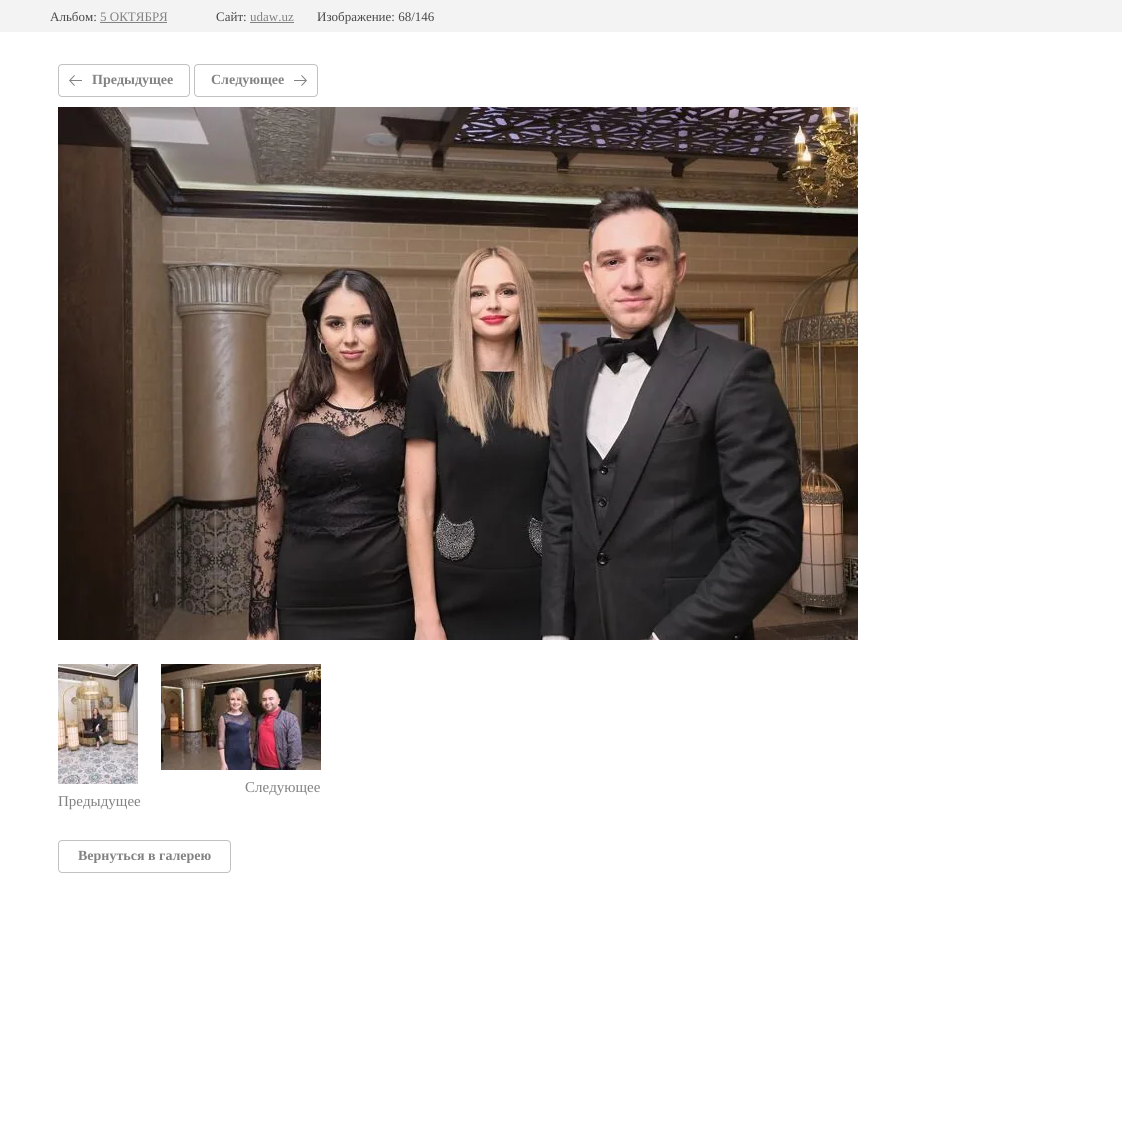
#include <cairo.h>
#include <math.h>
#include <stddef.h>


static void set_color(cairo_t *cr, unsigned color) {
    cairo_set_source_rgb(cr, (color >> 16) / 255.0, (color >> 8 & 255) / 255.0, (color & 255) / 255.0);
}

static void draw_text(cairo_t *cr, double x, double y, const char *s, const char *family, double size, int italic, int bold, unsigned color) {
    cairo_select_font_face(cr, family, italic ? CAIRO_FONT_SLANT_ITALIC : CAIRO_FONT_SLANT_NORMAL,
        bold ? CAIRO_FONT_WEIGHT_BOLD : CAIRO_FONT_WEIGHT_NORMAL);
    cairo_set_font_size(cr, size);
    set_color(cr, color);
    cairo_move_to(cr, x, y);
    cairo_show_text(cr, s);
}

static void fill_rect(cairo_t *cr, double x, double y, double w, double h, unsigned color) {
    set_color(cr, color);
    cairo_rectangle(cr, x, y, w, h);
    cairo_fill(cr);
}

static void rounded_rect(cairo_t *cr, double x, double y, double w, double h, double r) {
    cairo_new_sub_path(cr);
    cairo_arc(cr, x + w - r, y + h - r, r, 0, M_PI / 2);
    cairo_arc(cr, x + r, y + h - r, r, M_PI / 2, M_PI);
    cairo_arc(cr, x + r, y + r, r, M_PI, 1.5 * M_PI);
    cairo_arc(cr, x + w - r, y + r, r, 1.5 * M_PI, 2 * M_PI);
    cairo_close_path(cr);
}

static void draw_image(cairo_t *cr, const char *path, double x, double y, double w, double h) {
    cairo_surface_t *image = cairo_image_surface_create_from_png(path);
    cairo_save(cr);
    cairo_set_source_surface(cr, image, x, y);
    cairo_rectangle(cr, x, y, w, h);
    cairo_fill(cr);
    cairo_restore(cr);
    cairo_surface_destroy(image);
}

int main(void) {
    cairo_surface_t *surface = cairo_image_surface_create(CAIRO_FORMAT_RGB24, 1122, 1133);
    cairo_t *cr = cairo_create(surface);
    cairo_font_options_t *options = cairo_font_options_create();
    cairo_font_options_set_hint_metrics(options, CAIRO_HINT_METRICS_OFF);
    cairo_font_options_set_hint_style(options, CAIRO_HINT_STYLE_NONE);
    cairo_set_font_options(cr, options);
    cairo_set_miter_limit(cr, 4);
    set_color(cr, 0xFFFFFF);
    cairo_paint(cr);
    fill_rect(cr, 0, 0, 1122, 32, 0xF3F3F3);
    draw_text(cr, 50, 21, "Альбом:", "Liberation Serif", 13, 0, 0, 0x484848);
    draw_text(cr, 100, 21, "5 ОКТЯБРЯ", "Liberation Serif", 13, 0, 0, 0x828282);
    fill_rect(cr, 100, 22, 67, 1, 0x828282);
    draw_text(cr, 216, 21, "Сайт:", "Liberation Serif", 13, 0, 0, 0x484848);
    draw_text(cr, 250, 21, "udaw.uz", "Liberation Serif", 13, 0, 0, 0x828282);
    fill_rect(cr, 250, 22, 44, 1, 0x828282);
    draw_text(cr, 317, 21, "Изображение: 68/146", "Liberation Serif", 13, 0, 0, 0x484848);
    rounded_rect(cr, 58.5, 64.5, 131, 32, 3.5);
    set_color(cr, 0xC1C1C1);
    cairo_set_line_width(cr, 1);
    cairo_stroke(cr);
    draw_image(cr, "assets/img1.png", 69, 75, 13, 11);
    draw_text(cr, 92, 84, "Предыдущее", "Liberation Serif", 14, 0, 1, 0x828282);
    rounded_rect(cr, 194.5, 64.5, 123, 32, 3.5);
    set_color(cr, 0xC1C1C1);
    cairo_stroke(cr);
    draw_text(cr, 211, 84, "Следующее", "Liberation Serif", 14, 0, 1, 0x828282);
    draw_image(cr, "assets/img2.png", 294, 75, 13, 11);
    draw_image(cr, "assets/img3.png", 58, 107, 800, 533);
    draw_image(cr, "assets/img4.png", 161, 664, 160, 106);
    draw_text(cr, 245, 792, "Следующее", "Liberation Serif", 15, 0, 0, 0x828282);
    draw_image(cr, "assets/img5.png", 58, 664, 80, 120);
    draw_text(cr, 58, 806, "Предыдущее", "Liberation Serif", 15, 0, 0, 0x828282);
    rounded_rect(cr, 58.5, 840.5, 172, 32, 3.5);
    set_color(cr, 0xC1C1C1);
    cairo_stroke(cr);
    draw_text(cr, 78, 860, "Вернуться в галерею", "Liberation Serif", 14, 0, 1, 0x828282);
    cairo_surface_write_to_png(surface, "output.png");
    cairo_font_options_destroy(options);
    cairo_destroy(cr);
    cairo_surface_destroy(surface);
    return 0;
}
